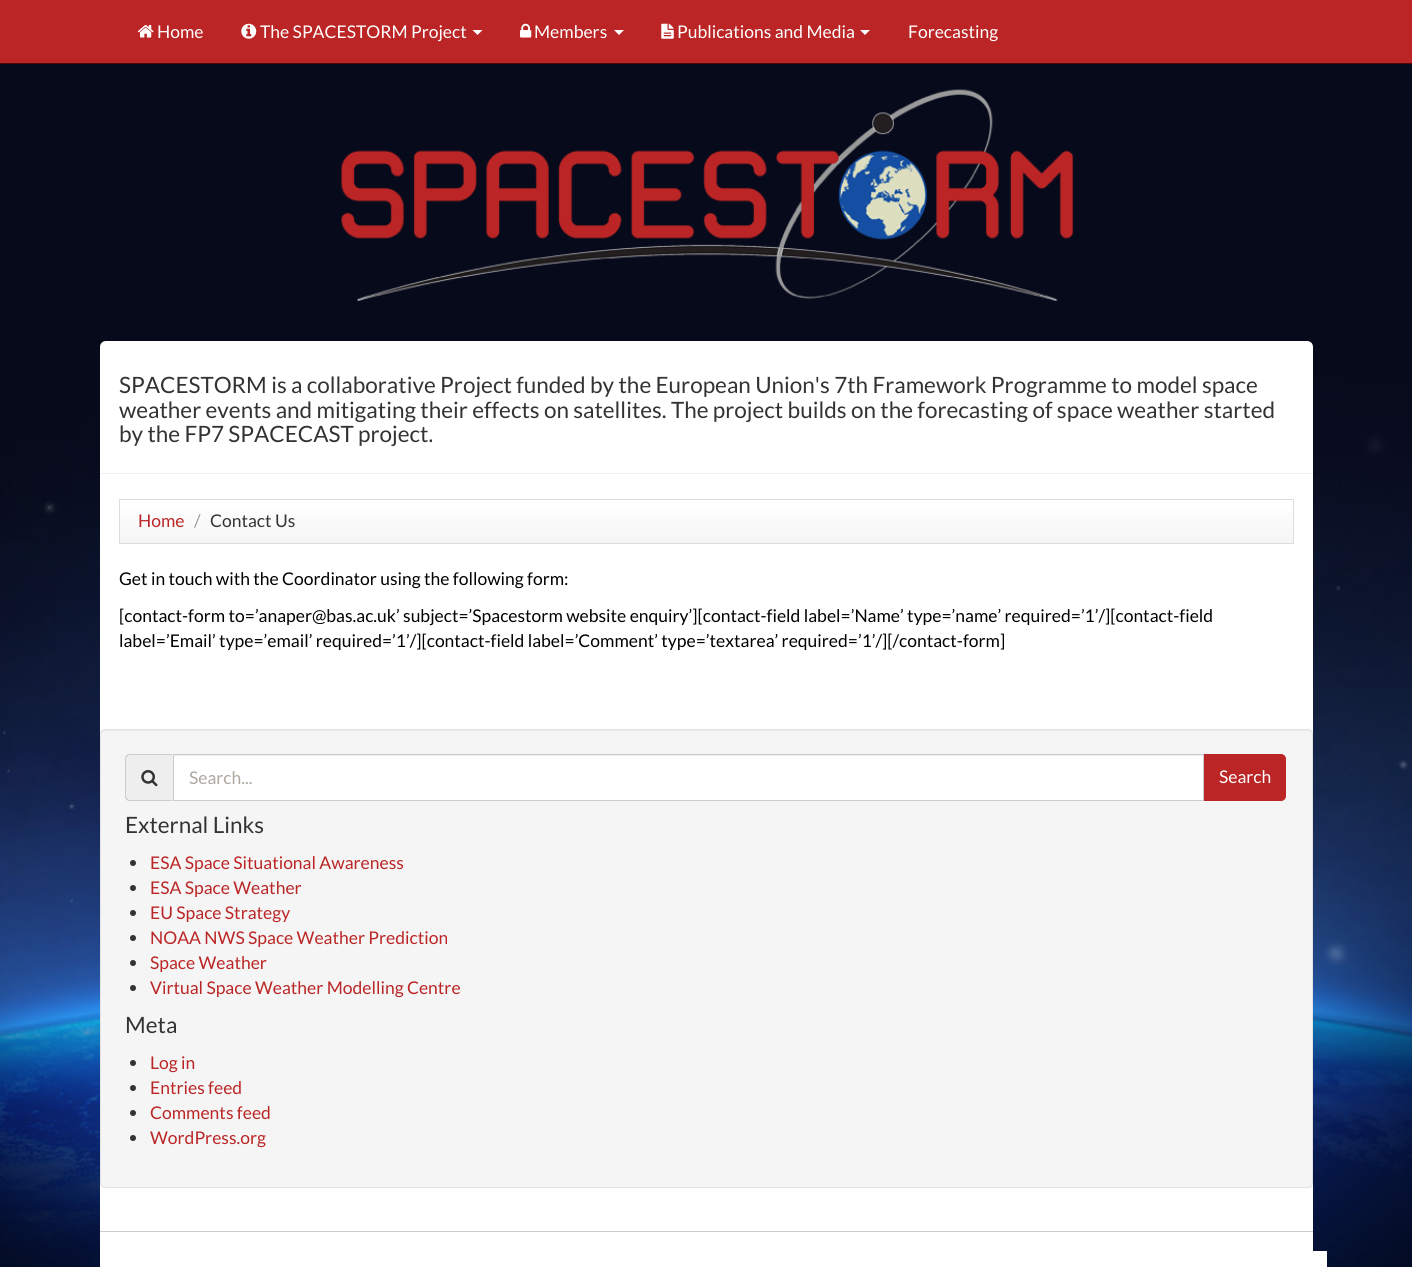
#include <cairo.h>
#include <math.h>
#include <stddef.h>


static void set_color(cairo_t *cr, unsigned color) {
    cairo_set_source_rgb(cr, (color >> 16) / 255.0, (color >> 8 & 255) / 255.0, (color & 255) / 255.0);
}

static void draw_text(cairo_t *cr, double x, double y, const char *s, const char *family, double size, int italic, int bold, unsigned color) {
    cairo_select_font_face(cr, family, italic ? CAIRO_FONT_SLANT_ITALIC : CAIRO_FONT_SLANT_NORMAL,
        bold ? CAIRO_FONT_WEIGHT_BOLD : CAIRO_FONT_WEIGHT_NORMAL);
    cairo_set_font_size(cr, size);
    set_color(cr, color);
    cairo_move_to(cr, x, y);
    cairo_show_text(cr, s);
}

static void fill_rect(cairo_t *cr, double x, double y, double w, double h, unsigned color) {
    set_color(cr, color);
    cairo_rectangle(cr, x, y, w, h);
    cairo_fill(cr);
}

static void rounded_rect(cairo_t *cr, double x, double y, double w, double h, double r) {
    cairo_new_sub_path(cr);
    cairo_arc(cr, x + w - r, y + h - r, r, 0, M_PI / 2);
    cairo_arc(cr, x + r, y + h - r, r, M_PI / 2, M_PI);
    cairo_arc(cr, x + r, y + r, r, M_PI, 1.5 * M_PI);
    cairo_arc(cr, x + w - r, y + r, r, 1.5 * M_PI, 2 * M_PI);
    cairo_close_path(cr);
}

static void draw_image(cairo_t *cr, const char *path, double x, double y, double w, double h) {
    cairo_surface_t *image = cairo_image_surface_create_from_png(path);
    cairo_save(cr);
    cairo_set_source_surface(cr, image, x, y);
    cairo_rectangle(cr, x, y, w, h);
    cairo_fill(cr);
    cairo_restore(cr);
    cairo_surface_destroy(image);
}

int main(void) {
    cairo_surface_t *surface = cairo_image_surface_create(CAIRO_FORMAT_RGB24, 1412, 1267);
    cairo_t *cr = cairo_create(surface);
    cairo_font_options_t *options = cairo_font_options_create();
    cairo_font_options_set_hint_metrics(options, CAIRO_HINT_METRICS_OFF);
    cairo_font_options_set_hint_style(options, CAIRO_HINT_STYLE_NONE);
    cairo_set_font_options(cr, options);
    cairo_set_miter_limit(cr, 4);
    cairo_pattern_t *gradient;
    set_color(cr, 0x070A1B);
    cairo_paint(cr);
    draw_image(cr, "assets/img1.png", 0, 378, 1412, 889);
    fill_rect(cr, 0, 0, 1412, 63, 0xBB2525);
    fill_rect(cr, 0, 63, 1412, 1, 0x580000);
    draw_image(cr, "assets/img2.png", 137, 25, 17, 13);
    draw_text(cr, 157, 38, "Home", "Lato", 17.5, 0, 0, 0xFFFFFF);
    draw_image(cr, "assets/img3.png", 241, 23, 16, 16);
    draw_text(cr, 260, 38, "The SPACESTORM Project", "Lato", 17.5, 0, 0, 0xFFFFFF);
    cairo_new_path(cr);
    cairo_move_to(cr, 472.5, 30);
    cairo_line_to(cr, 482.5, 30);
    cairo_line_to(cr, 477.5, 35);
    cairo_close_path(cr);
    cairo_fill(cr);
    draw_image(cr, "assets/img4.png", 520, 23, 12, 15);
    draw_text(cr, 534, 38, "Members", "Lato", 17.5, 0, 0, 0xFFFFFF);
    cairo_new_path(cr);
    cairo_move_to(cr, 614, 30);
    cairo_line_to(cr, 624, 30);
    cairo_line_to(cr, 619, 35);
    cairo_close_path(cr);
    cairo_fill(cr);
    draw_image(cr, "assets/img5.png", 661, 23, 13, 16);
    draw_text(cr, 677, 38, "Publications and Media", "Lato", 17.5, 0, 0, 0xFFFFFF);
    cairo_new_path(cr);
    cairo_move_to(cr, 860, 30);
    cairo_line_to(cr, 870, 30);
    cairo_line_to(cr, 865, 35);
    cairo_close_path(cr);
    cairo_fill(cr);
    draw_text(cr, 908, 38, "Forecasting", "Lato", 17.5, 0, 0, 0xFFFFFF);
    draw_image(cr, "assets/img6.png", 341, 89, 733, 212);
    cairo_new_path(cr);
    cairo_move_to(cr, 106, 341);
    cairo_line_to(cr, 1307, 341);
    cairo_curve_to(cr, 1310.5, 341, 1313, 343.5, 1313, 347);
    cairo_line_to(cr, 1313, 474);
    cairo_line_to(cr, 100, 474);
    cairo_line_to(cr, 100, 347);
    cairo_curve_to(cr, 100, 343.5, 102.5, 341, 106, 341);
    cairo_close_path(cr);
    cairo_fill(cr);
    fill_rect(cr, 100, 473, 1213, 1, 0xEFEFEF);
    draw_text(cr, 119, 393, "SPACESTORM is a collaborative Project funded by the European Union's 7th Framework Programme to model space", "Lato", 22.5, 0, 0, 0x333333);
    draw_text(cr, 119, 418, "weather events and mitigating their effects on satellites. The project builds on the forecasting of space weather started", "Lato", 22.5, 0, 0, 0x333333);
    draw_text(cr, 119, 442, "by the FP7 SPACECAST project.", "Lato", 22.5, 0, 0, 0x333333);
    fill_rect(cr, 100, 474, 1213, 757, 0xFFFFFF);
    gradient = cairo_pattern_create_linear(706, 500, 706, 543);
    cairo_pattern_add_color_stop_rgba(gradient, 0, 1, 1, 1, 1);
    cairo_pattern_add_color_stop_rgba(gradient, 1, 0.961, 0.961, 0.961, 1);
    cairo_set_source(cr, gradient);
    cairo_pattern_destroy(gradient);
    cairo_rectangle(cr, 120, 511, 1173, 32);
    cairo_fill(cr);
    cairo_rectangle(cr, 119.5, 499.5, 1174, 44);
    set_color(cr, 0xDDDDDD);
    cairo_set_line_width(cr, 1);
    cairo_stroke(cr);
    draw_text(cr, 138, 527, "Home", "Lato", 17.5, 0, 0, 0xBB2525);
    draw_text(cr, 194, 527, "/", "Lato", 17.5, 0, 0, 0x999999);
    draw_text(cr, 210, 527, "Contact Us", "Lato", 17.5, 0, 0, 0x333333);
    draw_text(cr, 119, 585, "Get in touch with the Coordinator using the following form:", "Lato", 17.5, 0, 0, 0x000000);
    draw_text(cr, 119, 622, "[contact-form to=’anaper@bas.ac.uk’ subject=’Spacestorm website enquiry’][contact-field label=’Name’ type=’name’ required=’1’/][contact-field", "Lato", 17.5, 0, 0, 0x000000);
    draw_text(cr, 119, 647, "label=’Email’ type=’email’ required=’1’/][contact-field label=’Comment’ type=’textarea’ required=’1’/][/contact-form]", "Lato", 17.5, 0, 0, 0x000000);
    set_color(cr, 0xF5F5F5);
    rounded_rect(cr, 100, 729, 1213, 459, 5);
    cairo_fill(cr);
    set_color(cr, 0xE9E9E9);
    cairo_new_path(cr);
    cairo_move_to(cr, 105, 731);
    cairo_line_to(cr, 1308, 731);
    cairo_curve_to(cr, 1310, 731, 1311, 733, 1311, 735);
    cairo_curve_to(cr, 1311, 732, 1310, 730, 1307, 730);
    cairo_line_to(cr, 105, 730);
    cairo_curve_to(cr, 102, 730, 101, 732, 101, 735);
    cairo_curve_to(cr, 101, 733, 103, 731, 105, 731);
    cairo_close_path(cr);
    cairo_fill(cr);
    rounded_rect(cr, 100.5, 729.5, 1212, 458, 4.5);
    set_color(cr, 0xE3E3E3);
    cairo_stroke(cr);
    set_color(cr, 0xEEEEEE);
    cairo_new_path(cr);
    cairo_move_to(cr, 130, 754);
    cairo_line_to(cr, 173, 754);
    cairo_line_to(cr, 173, 801);
    cairo_line_to(cr, 130, 801);
    cairo_curve_to(cr, 127, 801, 125, 799, 125, 796);
    cairo_line_to(cr, 125, 759);
    cairo_curve_to(cr, 125, 756, 127, 754, 130, 754);
    cairo_close_path(cr);
    cairo_fill(cr);
    set_color(cr, 0xCCCCCC);
    cairo_set_fill_rule(cr, CAIRO_FILL_RULE_EVEN_ODD);
    cairo_new_path(cr);
    cairo_move_to(cr, 130, 754);
    cairo_line_to(cr, 172, 754);
    cairo_line_to(cr, 172, 801);
    cairo_line_to(cr, 130, 801);
    cairo_curve_to(cr, 127, 801, 125, 799, 125, 796);
    cairo_line_to(cr, 125, 759);
    cairo_curve_to(cr, 125, 756, 127, 754, 130, 754);
    cairo_close_path(cr);
    cairo_move_to(cr, 130, 755);
    cairo_line_to(cr, 172, 755);
    cairo_line_to(cr, 172, 800);
    cairo_line_to(cr, 130, 800);
    cairo_curve_to(cr, 128, 800, 126, 798, 126, 796);
    cairo_line_to(cr, 126, 759);
    cairo_curve_to(cr, 126, 757, 128, 755, 130, 755);
    cairo_close_path(cr);
    cairo_fill(cr);
    draw_image(cr, "assets/img7.png", 141, 770, 17, 17);
    fill_rect(cr, 174, 756, 1029, 44, 0xFFFFFF);
    fill_rect(cr, 174, 755, 1029, 1, 0xECECEC);
    set_color(cr, 0xBB2525);
    cairo_new_path(cr);
    cairo_move_to(cr, 1203.5, 754.5);
    cairo_line_to(cr, 1281, 754.5);
    cairo_curve_to(cr, 1283.5, 754.5, 1285.5, 756.5, 1285.5, 759);
    cairo_line_to(cr, 1285.5, 796);
    cairo_curve_to(cr, 1285.5, 798.5, 1283.5, 800.5, 1281, 800.5);
    cairo_line_to(cr, 1203.5, 800.5);
    cairo_close_path(cr);
    cairo_fill_preserve(cr);
    cairo_stroke(cr);
    cairo_rectangle(cr, 173.5, 754.5, 1030, 46);
    set_color(cr, 0xCCCCCC);
    cairo_stroke(cr);
    draw_text(cr, 189, 784, "Search...", "Lato", 17.5, 0, 0, 0xAEA79F);
    draw_text(cr, 1219, 783, "Search", "Lato", 17.5, 0, 0, 0xFFFFFF);
    draw_text(cr, 125, 833, "External Links", "Lato", 22.5, 0, 0, 0x333333);
    cairo_new_path(cr);
    cairo_arc(cr, 133, 863, 3, 0, 2 * M_PI);
    cairo_fill(cr);
    draw_text(cr, 150, 869, "ESA Space Situational Awareness", "Lato", 17.5, 0, 0, 0xBB2525);
    set_color(cr, 0x333333);
    cairo_new_path(cr);
    cairo_arc(cr, 133, 888, 3, 0, 2 * M_PI);
    cairo_fill(cr);
    draw_text(cr, 150, 894, "ESA Space Weather", "Lato", 17.5, 0, 0, 0xBB2525);
    set_color(cr, 0x333333);
    cairo_new_path(cr);
    cairo_arc(cr, 133, 913, 3, 0, 2 * M_PI);
    cairo_fill(cr);
    draw_text(cr, 150, 919, "EU Space Strategy", "Lato", 17.5, 0, 0, 0xBB2525);
    set_color(cr, 0x333333);
    cairo_new_path(cr);
    cairo_arc(cr, 133, 938, 3, 0, 2 * M_PI);
    cairo_fill(cr);
    draw_text(cr, 150, 944, "NOAA NWS Space Weather Prediction", "Lato", 17.5, 0, 0, 0xBB2525);
    set_color(cr, 0x333333);
    cairo_new_path(cr);
    cairo_arc(cr, 133, 963, 3, 0, 2 * M_PI);
    cairo_fill(cr);
    draw_text(cr, 150, 969, "Space Weather", "Lato", 17.5, 0, 0, 0xBB2525);
    set_color(cr, 0x333333);
    cairo_new_path(cr);
    cairo_arc(cr, 133, 988, 3, 0, 2 * M_PI);
    cairo_fill(cr);
    draw_text(cr, 150, 994, "Virtual Space Weather Modelling Centre", "Lato", 17.5, 0, 0, 0xBB2525);
    draw_text(cr, 125, 1033, "Meta", "Lato", 22.5, 0, 0, 0x333333);
    cairo_new_path(cr);
    cairo_arc(cr, 133, 1063, 3, 0, 2 * M_PI);
    cairo_fill(cr);
    draw_text(cr, 150, 1069, "Log in", "Lato", 17.5, 0, 0, 0xBB2525);
    set_color(cr, 0x333333);
    cairo_new_path(cr);
    cairo_arc(cr, 133, 1088, 3, 0, 2 * M_PI);
    cairo_fill(cr);
    draw_text(cr, 150, 1094, "Entries feed", "Lato", 17.5, 0, 0, 0xBB2525);
    set_color(cr, 0x333333);
    cairo_new_path(cr);
    cairo_arc(cr, 133, 1113, 3, 0, 2 * M_PI);
    cairo_fill(cr);
    draw_text(cr, 150, 1119, "Comments feed", "Lato", 17.5, 0, 0, 0xBB2525);
    set_color(cr, 0x333333);
    cairo_new_path(cr);
    cairo_arc(cr, 133, 1138, 3, 0, 2 * M_PI);
    cairo_fill(cr);
    draw_text(cr, 150, 1144, "WordPress.org", "Lato", 17.5, 0, 0, 0xBB2525);
    fill_rect(cr, 100, 1232, 1213, 35, 0xFFFFFF);
    fill_rect(cr, 100, 1231, 1213, 1, 0xCCCCCC);
    fill_rect(cr, 1313, 1251, 14, 16, 0xFFFFFF);
    cairo_surface_write_to_png(surface, "output.png");
    cairo_font_options_destroy(options);
    cairo_destroy(cr);
    cairo_surface_destroy(surface);
    return 0;
}
